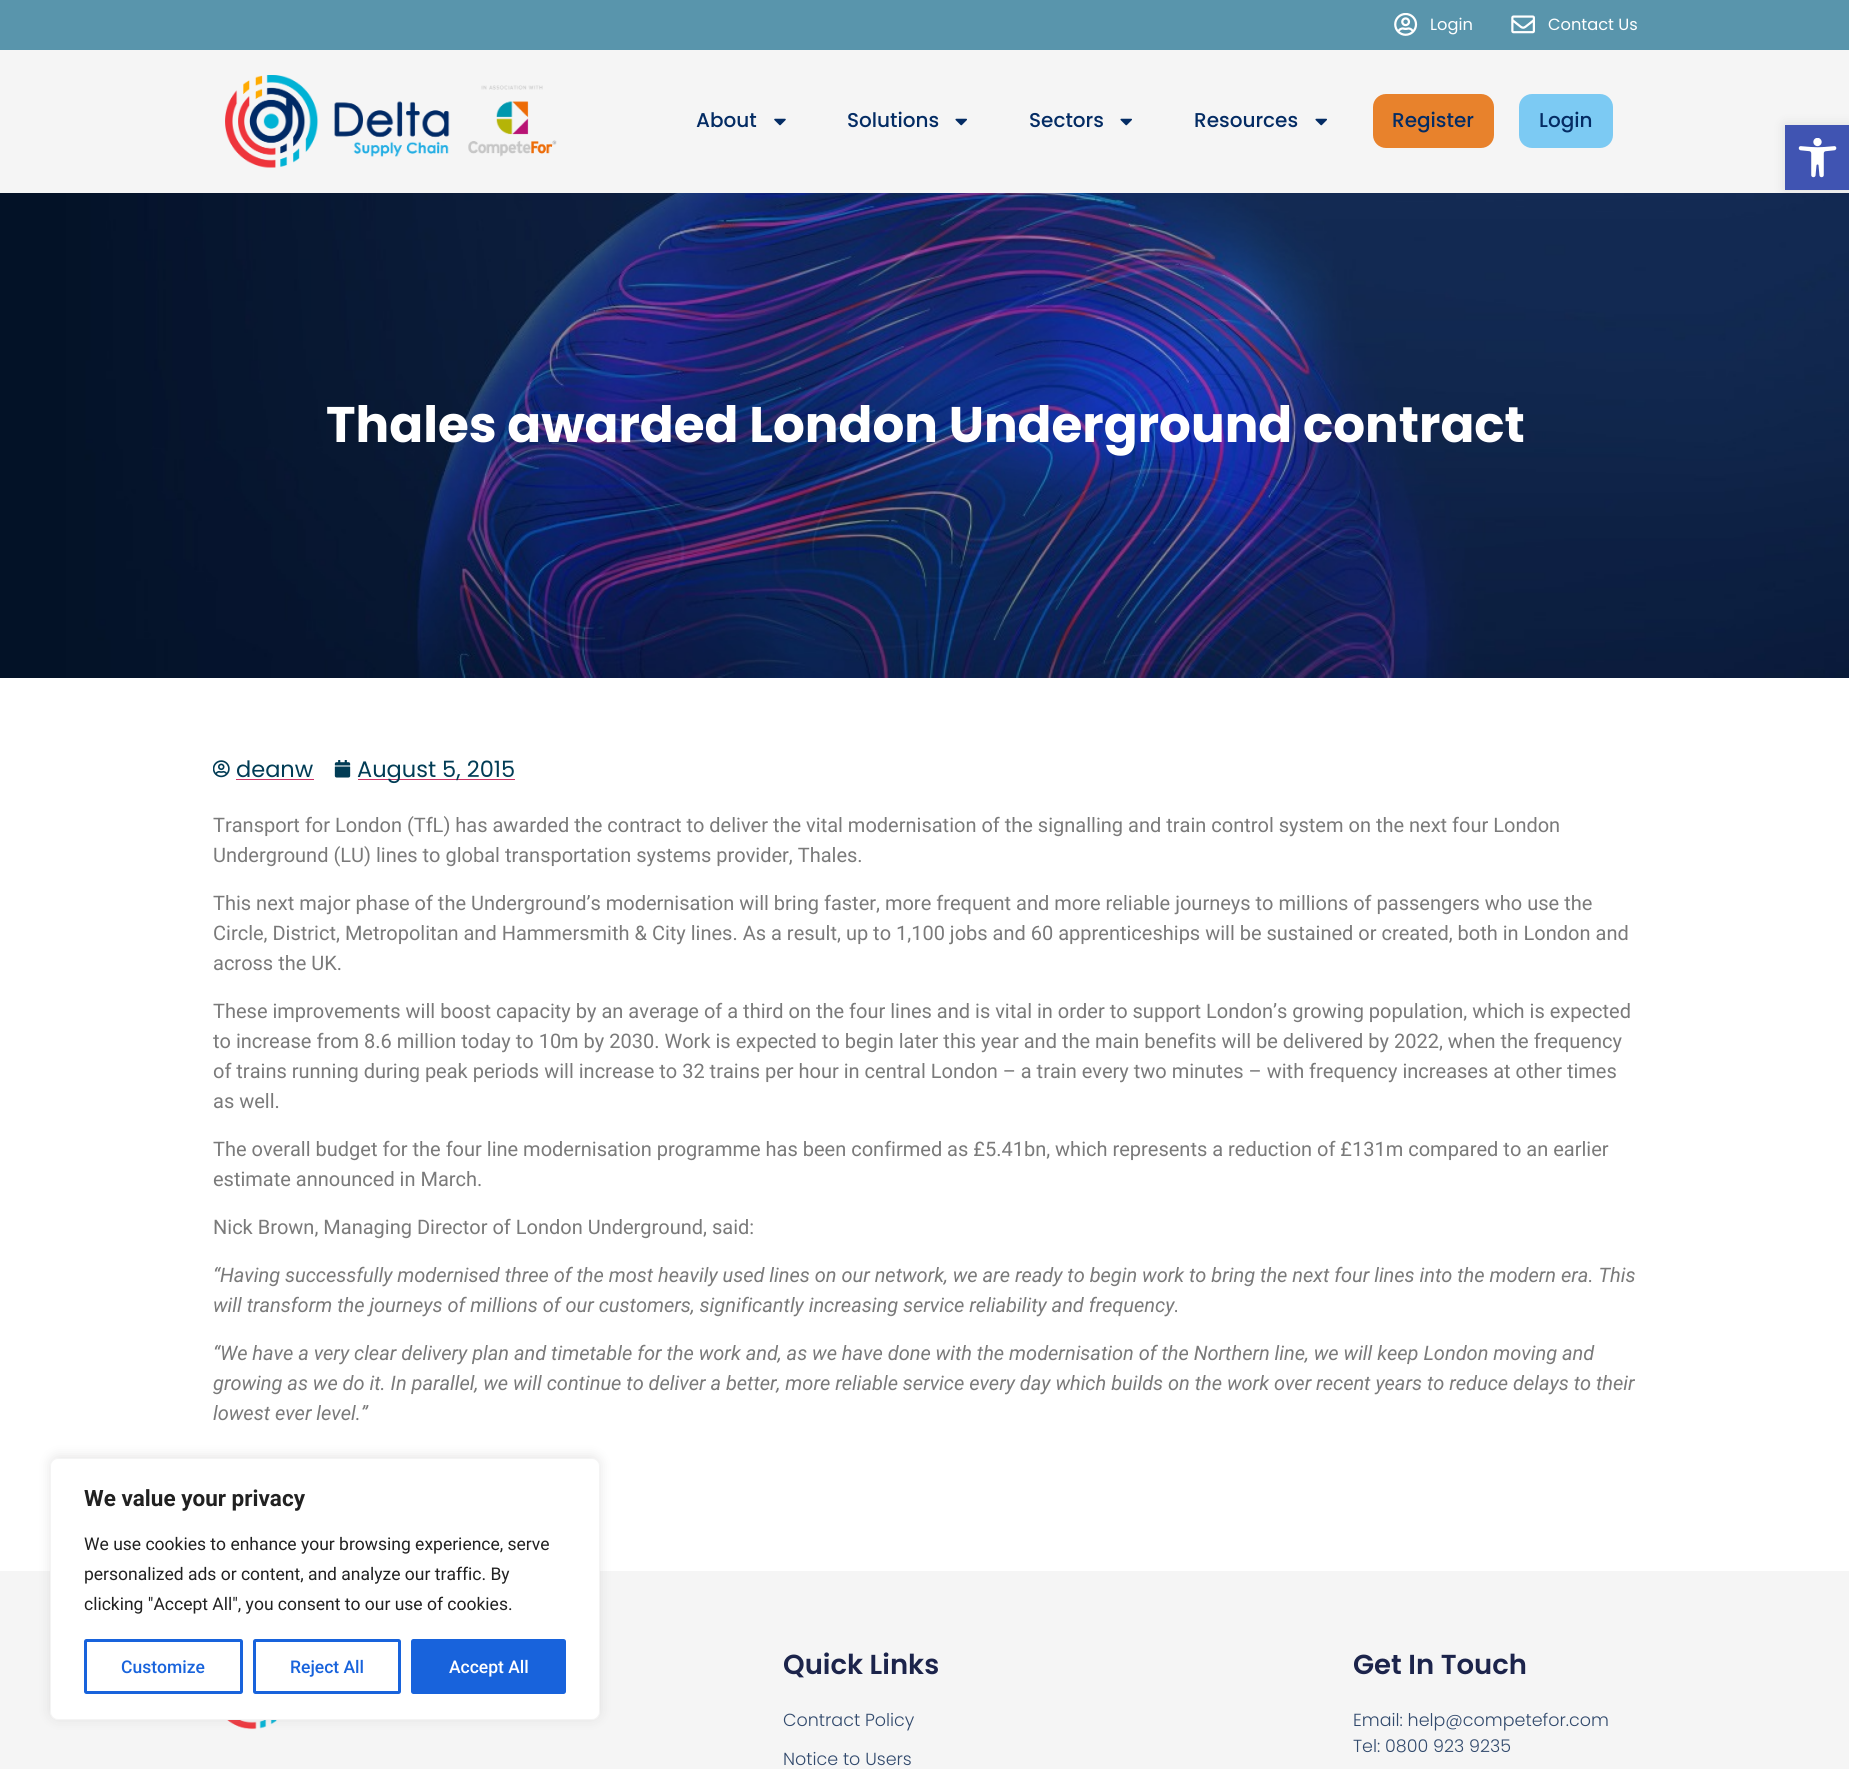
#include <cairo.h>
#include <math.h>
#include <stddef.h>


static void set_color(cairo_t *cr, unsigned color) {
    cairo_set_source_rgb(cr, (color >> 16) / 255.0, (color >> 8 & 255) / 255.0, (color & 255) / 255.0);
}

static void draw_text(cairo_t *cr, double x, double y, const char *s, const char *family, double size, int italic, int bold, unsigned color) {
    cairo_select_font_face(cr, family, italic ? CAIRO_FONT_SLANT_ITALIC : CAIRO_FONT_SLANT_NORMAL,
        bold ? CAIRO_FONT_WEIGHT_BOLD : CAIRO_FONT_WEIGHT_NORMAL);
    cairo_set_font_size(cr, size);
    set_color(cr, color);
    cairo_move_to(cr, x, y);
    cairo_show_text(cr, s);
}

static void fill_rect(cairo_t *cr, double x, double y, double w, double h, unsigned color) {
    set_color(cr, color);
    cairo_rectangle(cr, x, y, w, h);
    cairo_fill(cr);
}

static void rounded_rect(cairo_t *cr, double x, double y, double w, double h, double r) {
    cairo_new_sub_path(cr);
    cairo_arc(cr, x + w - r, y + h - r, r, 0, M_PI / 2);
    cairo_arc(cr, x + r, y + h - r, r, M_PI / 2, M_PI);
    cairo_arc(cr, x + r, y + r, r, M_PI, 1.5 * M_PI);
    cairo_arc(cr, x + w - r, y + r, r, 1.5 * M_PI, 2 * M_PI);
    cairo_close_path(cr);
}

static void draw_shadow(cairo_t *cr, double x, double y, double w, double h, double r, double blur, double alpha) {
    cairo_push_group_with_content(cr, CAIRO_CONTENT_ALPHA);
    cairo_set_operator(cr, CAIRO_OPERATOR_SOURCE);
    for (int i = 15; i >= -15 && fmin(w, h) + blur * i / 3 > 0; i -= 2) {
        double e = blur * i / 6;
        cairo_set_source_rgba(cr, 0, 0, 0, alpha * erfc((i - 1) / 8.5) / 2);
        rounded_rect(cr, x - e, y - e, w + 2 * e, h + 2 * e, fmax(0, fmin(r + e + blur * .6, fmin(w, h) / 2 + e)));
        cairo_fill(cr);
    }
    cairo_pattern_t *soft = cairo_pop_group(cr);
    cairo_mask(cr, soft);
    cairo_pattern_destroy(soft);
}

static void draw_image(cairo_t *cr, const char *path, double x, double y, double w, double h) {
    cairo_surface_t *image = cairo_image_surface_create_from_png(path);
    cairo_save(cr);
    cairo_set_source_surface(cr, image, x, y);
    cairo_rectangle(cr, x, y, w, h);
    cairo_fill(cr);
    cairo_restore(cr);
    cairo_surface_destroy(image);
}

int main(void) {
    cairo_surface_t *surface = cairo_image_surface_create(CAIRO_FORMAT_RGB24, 1849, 1769);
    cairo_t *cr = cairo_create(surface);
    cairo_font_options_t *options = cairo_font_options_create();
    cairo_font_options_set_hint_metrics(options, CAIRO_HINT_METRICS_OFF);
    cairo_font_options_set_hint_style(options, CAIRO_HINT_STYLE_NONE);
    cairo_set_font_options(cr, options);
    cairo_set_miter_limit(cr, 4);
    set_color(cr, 0xFFFFFF);
    cairo_paint(cr);
    fill_rect(cr, 0, 0, 1849, 50, 0x5995AC);
    draw_image(cr, "assets/img1.png", 1394, 13, 24, 23);
    draw_text(cr, 1430, 30, "Login", "Poppins", 16.25, 0, 0, 0xFFFFFF);
    draw_image(cr, "assets/img2.png", 1511, 15, 24, 19);
    draw_text(cr, 1548, 30, "Contact Us", "Poppins", 16.25, 0, 0, 0xFFFFFF);
    fill_rect(cr, 0, 50, 1849, 143, 0xF5F5F5);
    draw_image(cr, "assets/img3.png", 225, 75, 332, 93);
    draw_text(cr, 696, 127, "About", "Poppins Medium", 20, 0, 0, 0x042C64);
    draw_image(cr, "assets/img4.png", 774, 118, 12, 8);
    draw_text(cr, 847, 127, "Solutions", "Poppins Medium", 20, 0, 0, 0x042C64);
    draw_image(cr, "assets/img5.png", 955, 118, 12, 8);
    draw_text(cr, 1029, 127, "Sectors", "Poppins Medium", 20, 0, 0, 0x042C64);
    draw_image(cr, "assets/img5.png", 1120, 118, 12, 8);
    draw_text(cr, 1194, 127, "Resources", "Poppins Medium", 20, 0, 0, 0x042C64);
    draw_image(cr, "assets/img5.png", 1315, 118, 12, 8);
    set_color(cr, 0xE8822C);
    rounded_rect(cr, 1373, 94, 121, 54, 13);
    cairo_fill(cr);
    draw_text(cr, 1392, 127, "Register", "Poppins Medium", 20, 0, 0, 0x042C64);
    set_color(cr, 0x7CCAF3);
    rounded_rect(cr, 1519, 94, 94, 54, 13);
    cairo_fill(cr);
    draw_text(cr, 1539, 127, "Login", "Poppins Medium", 20, 0, 0, 0x042C64);
    draw_image(cr, "assets/img7.png", 0, 193, 1849, 485);
    set_color(cr, 0x000000);
    draw_shadow(cr, 1785, 125, 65, 65, 0, 6, 0.1);
    fill_rect(cr, 1785, 125, 64, 65, 0x4054B2);
    draw_image(cr, "assets/img6.png", 1798, 138, 39, 40);
    draw_text(cr, 326, 442, "Thales awarded London Underground contract", "Poppins", 50, 0, 1, 0xFFFFFF);
    draw_image(cr, "assets/img8.png", 213, 760, 17, 18);
    draw_text(cr, 236, 777, "deanw", "Poppins", 22.5, 0, 0, 0x013C55);
    fill_rect(cr, 236, 779, 78, 1, 0xCC3366);
    draw_image(cr, "assets/img9.png", 334, 760, 17, 18);
    fill_rect(cr, 358, 779, 157, 1, 0xCC3366);
    draw_text(cr, 357, 777, "August 5, 2015", "Poppins", 22.5, 0, 0, 0x013C55);
    draw_text(cr, 213, 832, "Transport for London (TfL) has awarded the contract to deliver the vital modernisation of the signalling and train control system on the next four London", "Roboto", 20, 0, 0, 0x7A7A7A);
    draw_text(cr, 213, 862, "Underground (LU) lines to global transportation systems provider, Thales.", "Roboto", 20, 0, 0, 0x7A7A7A);
    draw_text(cr, 213, 910, "This next major phase of the Underground’s modernisation will bring faster, more frequent and more reliable journeys to millions of passengers who use the", "Roboto", 20, 0, 0, 0x7A7A7A);
    draw_text(cr, 213, 940, "Circle, District, Metropolitan and Hammersmith & City lines. As a result, up to 1,100 jobs and 60 apprenticeships will be sustained or created, both in London and", "Roboto", 20, 0, 0, 0x7A7A7A);
    draw_text(cr, 213, 970, "across the UK.", "Roboto", 20, 0, 0, 0x7A7A7A);
    draw_text(cr, 213, 1018, "These improvements will boost capacity by an average of a third on the four lines and is vital in order to support London’s growing population, which is expected", "Roboto", 20, 0, 0, 0x7A7A7A);
    draw_text(cr, 213, 1048, "to increase from 8.6 million today to 10m by 2030. Work is expected to begin later this year and the main benefits will be delivered by 2022, when the frequency", "Roboto", 20, 0, 0, 0x7A7A7A);
    draw_text(cr, 213, 1078, "of trains running during peak periods will increase to 32 trains per hour in central London – a train every two minutes – with frequency increases at other times", "Roboto", 20, 0, 0, 0x7A7A7A);
    draw_text(cr, 213, 1108, "as well.", "Roboto", 20, 0, 0, 0x7A7A7A);
    draw_text(cr, 213, 1156, "The overall budget for the four line modernisation programme has been confirmed as £5.41bn, which represents a reduction of £131m compared to an earlier", "Roboto", 20, 0, 0, 0x7A7A7A);
    draw_text(cr, 213, 1186, "estimate announced in March.", "Roboto", 20, 0, 0, 0x7A7A7A);
    draw_text(cr, 213, 1234, "Nick Brown, Managing Director of London Underground, said:", "Roboto", 20, 0, 0, 0x7A7A7A);
    draw_text(cr, 213, 1282, "“Having successfully modernised three of the most heavily used lines on our network, we are ready to begin work to bring the next four lines into the modern era. This", "Roboto", 20, 1, 0, 0x7A7A7A);
    draw_text(cr, 213, 1312, "will transform the journeys of millions of our customers, significantly increasing service reliability and frequency.", "Roboto", 20, 1, 0, 0x7A7A7A);
    draw_text(cr, 213, 1360, "“We have a very clear delivery plan and timetable for the work and, as we have done with the modernisation of the Northern line, we will keep London moving and", "Roboto", 20, 1, 0, 0x7A7A7A);
    draw_text(cr, 213, 1390, "growing as we do it. In parallel, we will continue to deliver a better, more reliable service every day which builds on the work over recent years to reduce delays to their", "Roboto", 20, 1, 0, 0x7A7A7A);
    draw_text(cr, 213, 1420, "lowest ever level.”", "Roboto", 20, 1, 0, 0x7A7A7A);
    fill_rect(cr, 0, 1571, 1849, 198, 0xF5F5F5);
    draw_image(cr, "assets/img10.png", 227, 1720, 50, 10);
    set_color(cr, 0xACABAB);
    draw_shadow(cr, 50, 1456, 550, 263, 8, 6, 0.3);
    set_color(cr, 0xFFFFFF);
    rounded_rect(cr, 50.5, 1458.5, 549, 261, 7.5);
    cairo_fill_preserve(cr);
    set_color(cr, 0xF4F4F4);
    cairo_set_line_width(cr, 1);
    cairo_stroke(cr);
    draw_text(cr, 84, 1506, "We value your privacy", "Roboto", 22.5, 0, 1, 0x212121);
    draw_text(cr, 84, 1550, "We use cookies to enhance your browsing experience, serve", "Roboto", 17.5, 0, 0, 0x212121);
    draw_text(cr, 84, 1580, "personalized ads or content, and analyze our traffic. By", "Roboto", 17.5, 0, 0, 0x212121);
    draw_text(cr, 84, 1610, "clicking \"Accept All\", you consent to our use of cookies.", "Roboto", 17.5, 0, 0, 0x212121);
    rounded_rect(cr, 85.5, 1640.5, 156, 52, 1);
    set_color(cr, 0x1863DC);
    cairo_set_line_width(cr, 3);
    cairo_stroke(cr);
    draw_text(cr, 121, 1673, "Customize", "Roboto Medium", 17.5, 0, 0, 0x1863DC);
    rounded_rect(cr, 254.5, 1640.5, 145, 52, 1);
    cairo_stroke(cr);
    draw_text(cr, 290, 1673, "Reject All", "Roboto Medium", 17.5, 0, 0, 0x1863DC);
    rounded_rect(cr, 412.5, 1640.5, 152, 52, 1);
    cairo_fill_preserve(cr);
    cairo_stroke(cr);
    draw_text(cr, 449, 1673, "Accept All", "Roboto Medium", 17.5, 0, 0, 0xFFFFFF);
    draw_text(cr, 783, 1674, "Quick Links", "Poppins SemiBold", 27.5, 0, 0, 0x1C244B);
    draw_text(cr, 783, 1726, "Contract Policy", "Poppins Light", 17.5, 0, 0, 0x324A6D);
    draw_text(cr, 783, 1765, "Notice to Users", "Poppins Light", 17.5, 0, 0, 0x324A6D);
    draw_text(cr, 1353, 1674, "Get In Touch", "Poppins SemiBold", 27.5, 0, 0, 0x1C244B);
    draw_text(cr, 1353, 1726, "Email: help@competefor.com", "Poppins Light", 17.5, 0, 0, 0x324A6D);
    draw_text(cr, 1353, 1752, "Tel: 0800 923 9235", "Poppins Light", 17.5, 0, 0, 0x324A6D);
    cairo_surface_write_to_png(surface, "output.png");
    cairo_font_options_destroy(options);
    cairo_destroy(cr);
    cairo_surface_destroy(surface);
    return 0;
}
